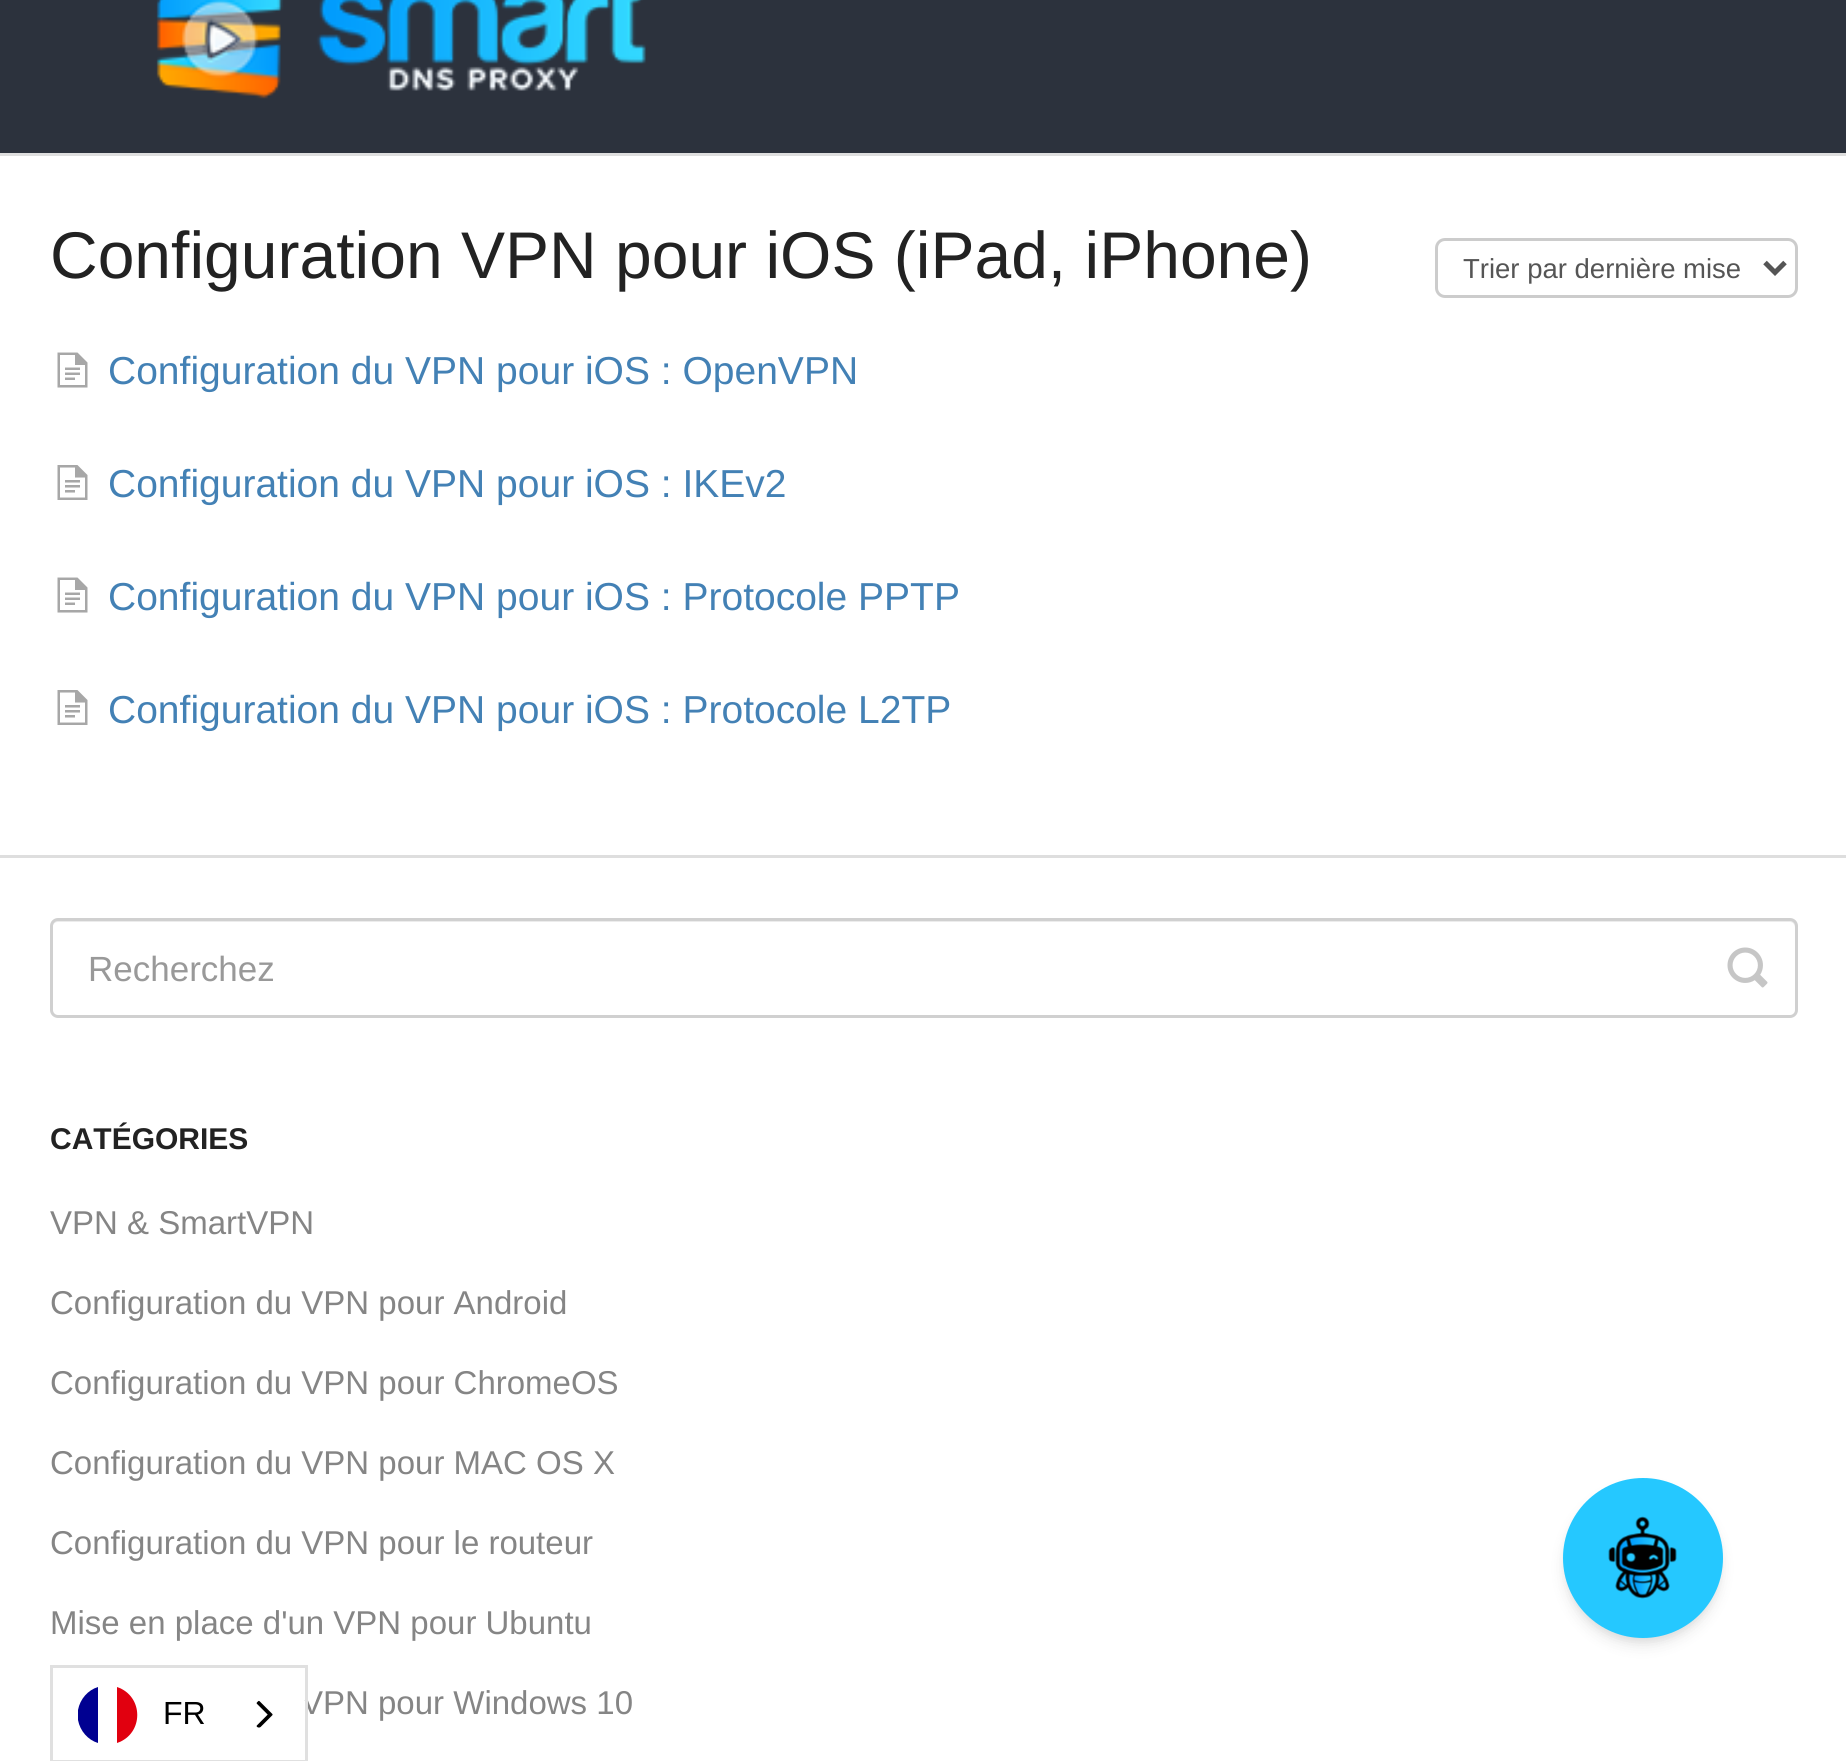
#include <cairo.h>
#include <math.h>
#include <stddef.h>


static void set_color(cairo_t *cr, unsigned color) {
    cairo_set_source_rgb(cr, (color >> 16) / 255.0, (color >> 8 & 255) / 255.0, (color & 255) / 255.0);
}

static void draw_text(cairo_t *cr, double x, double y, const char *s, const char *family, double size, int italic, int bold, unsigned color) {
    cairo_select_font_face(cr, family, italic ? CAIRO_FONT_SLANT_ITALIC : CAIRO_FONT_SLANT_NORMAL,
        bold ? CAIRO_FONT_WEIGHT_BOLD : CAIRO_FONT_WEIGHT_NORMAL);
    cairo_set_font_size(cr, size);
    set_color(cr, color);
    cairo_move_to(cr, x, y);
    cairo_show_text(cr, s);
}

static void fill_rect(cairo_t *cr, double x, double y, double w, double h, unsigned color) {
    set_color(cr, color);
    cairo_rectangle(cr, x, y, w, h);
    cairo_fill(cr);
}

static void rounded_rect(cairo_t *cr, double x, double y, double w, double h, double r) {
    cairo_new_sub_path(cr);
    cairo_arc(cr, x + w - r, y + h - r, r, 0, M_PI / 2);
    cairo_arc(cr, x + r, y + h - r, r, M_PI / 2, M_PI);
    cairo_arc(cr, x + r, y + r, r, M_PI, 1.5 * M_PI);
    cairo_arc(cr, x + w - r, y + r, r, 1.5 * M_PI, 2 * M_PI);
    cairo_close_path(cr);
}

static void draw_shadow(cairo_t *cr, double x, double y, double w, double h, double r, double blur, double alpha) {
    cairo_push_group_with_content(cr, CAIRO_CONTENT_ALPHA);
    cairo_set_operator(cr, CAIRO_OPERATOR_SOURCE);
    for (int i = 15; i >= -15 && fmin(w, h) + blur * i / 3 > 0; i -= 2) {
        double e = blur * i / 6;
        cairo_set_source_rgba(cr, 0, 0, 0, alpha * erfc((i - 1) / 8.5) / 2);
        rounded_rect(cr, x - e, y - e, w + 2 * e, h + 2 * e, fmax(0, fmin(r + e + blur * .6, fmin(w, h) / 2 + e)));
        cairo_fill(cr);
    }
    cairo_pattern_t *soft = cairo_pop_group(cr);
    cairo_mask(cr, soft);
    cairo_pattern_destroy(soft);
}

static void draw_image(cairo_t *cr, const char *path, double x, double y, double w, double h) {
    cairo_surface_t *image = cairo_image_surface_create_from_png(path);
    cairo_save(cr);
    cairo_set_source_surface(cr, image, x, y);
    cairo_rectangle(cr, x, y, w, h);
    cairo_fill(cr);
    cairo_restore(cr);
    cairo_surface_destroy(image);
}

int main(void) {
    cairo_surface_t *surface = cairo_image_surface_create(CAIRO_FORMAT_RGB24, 1846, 1761);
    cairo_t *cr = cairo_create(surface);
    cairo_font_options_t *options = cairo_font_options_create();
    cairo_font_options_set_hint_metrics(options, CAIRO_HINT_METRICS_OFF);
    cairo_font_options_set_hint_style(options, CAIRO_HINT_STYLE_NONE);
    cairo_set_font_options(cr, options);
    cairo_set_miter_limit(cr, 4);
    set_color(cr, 0xFFFFFF);
    cairo_paint(cr);
    fill_rect(cr, 0, 0, 1846, 153, 0x2C323D);
    draw_image(cr, "assets/img1.png", 156, 0, 490, 99);
    fill_rect(cr, 0, 153, 1846, 3, 0xDEDEDE);
    fill_rect(cr, 0, 855, 1846, 3, 0xDEDEDE);
    draw_text(cr, 50, 278, "Configuration VPN pour iOS (iPad, iPhone)", "Liberation Sans", 66, 0, 0, 0x222222);
    rounded_rect(cr, 1436.5, 239.5, 360, 57, 8.5);
    set_color(cr, 0xCCCCCC);
    cairo_set_line_width(cr, 3);
    cairo_stroke(cr);
    cairo_new_path(cr);
    cairo_move_to(cr, 1765, 262.5);
    cairo_line_to(cr, 1775, 272.5);
    cairo_line_to(cr, 1785, 262.5);
    set_color(cr, 0x555555);
    cairo_set_line_width(cr, 5);
    cairo_stroke(cr);
    draw_text(cr, 1463, 278, "Trier par dernière mise", "Liberation Sans", 27.5, 0, 0, 0x555555);
    draw_image(cr, "assets/img2.png", 57, 352, 31, 36);
    draw_text(cr, 108, 384, "Configuration du VPN pour iOS : OpenVPN", "Liberation Sans", 39, 0, 0, 0x4381B5);
    draw_image(cr, "assets/img3.png", 57, 465, 31, 35);
    draw_text(cr, 108, 497, "Configuration du VPN pour iOS : IKEv2", "Liberation Sans", 39, 0, 0, 0x4381B5);
    draw_image(cr, "assets/img2.png", 57, 577, 31, 36);
    draw_text(cr, 108, 610, "Configuration du VPN pour iOS : Protocole PPTP", "Liberation Sans", 39, 0, 0, 0x4381B5);
    draw_image(cr, "assets/img3.png", 57, 690, 31, 35);
    draw_text(cr, 108, 723, "Configuration du VPN pour iOS : Protocole L2TP", "Liberation Sans", 39, 0, 0, 0x4381B5);
    set_color(cr, 0xECECEC);
    cairo_new_path(cr);
    cairo_move_to(cr, 58, 922);
    cairo_line_to(cr, 1790, 922);
    cairo_curve_to(cr, 1793, 922, 1795, 925, 1795, 928);
    cairo_line_to(cr, 1795, 925);
    cairo_curve_to(cr, 1795, 922, 1793, 920, 1790, 920);
    cairo_line_to(cr, 58, 920);
    cairo_curve_to(cr, 55, 920, 53, 922, 53, 925);
    cairo_curve_to(cr, 54, 923, 56, 922, 58, 922);
    cairo_close_path(cr);
    cairo_fill(cr);
    rounded_rect(cr, 51.5, 919.5, 1745, 97, 6.5);
    set_color(cr, 0xD0D0D0);
    cairo_set_line_width(cr, 3);
    cairo_stroke(cr);
    draw_text(cr, 88, 981, "Recherchez", "Liberation Sans", 35, 0, 0, 0x999999);
    draw_image(cr, "assets/img4.png", 1727, 947, 41, 41);
    draw_text(cr, 50, 1149, "CATÉGORIES", "Liberation Sans", 30, 0, 1, 0x222222);
    draw_text(cr, 50, 1234, "VPN & SmartVPN", "Liberation Sans", 33, 0, 0, 0x858585);
    draw_text(cr, 50, 1314, "Configuration du VPN pour Android", "Liberation Sans", 33, 0, 0, 0x858585);
    draw_text(cr, 50, 1394, "Configuration du VPN pour ChromeOS", "Liberation Sans", 33, 0, 0, 0x858585);
    draw_text(cr, 50, 1474, "Configuration du VPN pour MAC OS X", "Liberation Sans", 33, 0, 0, 0x858585);
    draw_text(cr, 50, 1554, "Configuration du VPN pour le routeur", "Liberation Sans", 33, 0, 0, 0x858585);
    draw_text(cr, 50, 1634, "Mise en place d'un VPN pour Ubuntu", "Liberation Sans", 33, 0, 0, 0x858585);
    draw_text(cr, 301, 1714, "VPN pour Windows 10", "Liberation Sans", 33, 0, 0, 0x858585);
    set_color(cr, 0x000000);
    draw_shadow(cr, 1568, 1488, 150, 150, 75, 5, 0.1);
    draw_shadow(cr, 1565, 1490, 155, 155, 77.5, 7.5, 0.1);
    set_color(cr, 0x25C8FF);
    cairo_arc(cr, 1643, 1558, 80, 0, 2 * M_PI);
    cairo_fill(cr);
    draw_image(cr, "assets/img5.png", 1608, 1516, 69, 83);
    fill_rect(cr, 301, 1691, 4, 9, 0xFFFFFF);
    cairo_rectangle(cr, 51.5, 1666.5, 255, 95);
    set_color(cr, 0xE0E0E0);
    cairo_stroke(cr);
    set_color(cr, 0x000091);
    cairo_new_path(cr);
    cairo_move_to(cr, 78, 1710);
    cairo_curve_to(cr, 80, 1699, 88, 1690, 98, 1687);
    cairo_line_to(cr, 98, 1743);
    cairo_curve_to(cr, 88, 1740, 80, 1731, 78, 1720);
    cairo_close_path(cr);
    cairo_fill(cr);
    set_color(cr, 0xE1000F);
    cairo_new_path(cr);
    cairo_move_to(cr, 117, 1687);
    cairo_curve_to(cr, 144, 1696, 144, 1734, 117, 1743);
    cairo_close_path(cr);
    cairo_fill(cr);
    draw_text(cr, 163, 1724, "FR", "Liberation Sans", 32, 0, 0, 0x000000);
    draw_image(cr, "assets/img6.png", 256, 1700, 17, 28);
    cairo_surface_write_to_png(surface, "output.png");
    cairo_font_options_destroy(options);
    cairo_destroy(cr);
    cairo_surface_destroy(surface);
    return 0;
}
